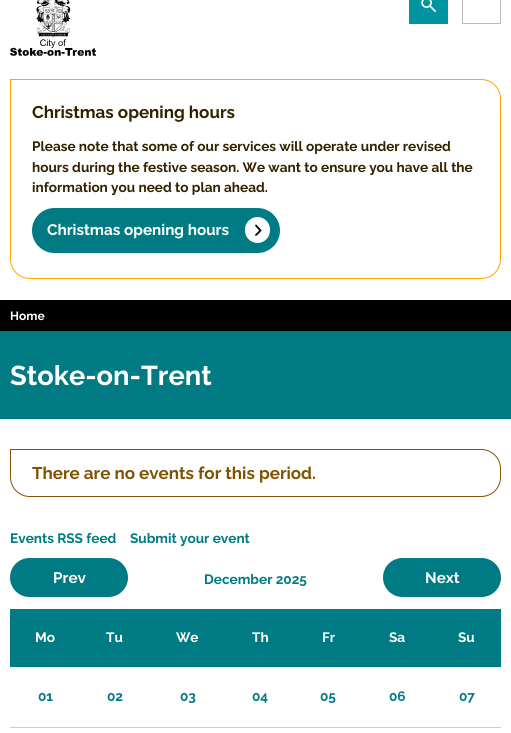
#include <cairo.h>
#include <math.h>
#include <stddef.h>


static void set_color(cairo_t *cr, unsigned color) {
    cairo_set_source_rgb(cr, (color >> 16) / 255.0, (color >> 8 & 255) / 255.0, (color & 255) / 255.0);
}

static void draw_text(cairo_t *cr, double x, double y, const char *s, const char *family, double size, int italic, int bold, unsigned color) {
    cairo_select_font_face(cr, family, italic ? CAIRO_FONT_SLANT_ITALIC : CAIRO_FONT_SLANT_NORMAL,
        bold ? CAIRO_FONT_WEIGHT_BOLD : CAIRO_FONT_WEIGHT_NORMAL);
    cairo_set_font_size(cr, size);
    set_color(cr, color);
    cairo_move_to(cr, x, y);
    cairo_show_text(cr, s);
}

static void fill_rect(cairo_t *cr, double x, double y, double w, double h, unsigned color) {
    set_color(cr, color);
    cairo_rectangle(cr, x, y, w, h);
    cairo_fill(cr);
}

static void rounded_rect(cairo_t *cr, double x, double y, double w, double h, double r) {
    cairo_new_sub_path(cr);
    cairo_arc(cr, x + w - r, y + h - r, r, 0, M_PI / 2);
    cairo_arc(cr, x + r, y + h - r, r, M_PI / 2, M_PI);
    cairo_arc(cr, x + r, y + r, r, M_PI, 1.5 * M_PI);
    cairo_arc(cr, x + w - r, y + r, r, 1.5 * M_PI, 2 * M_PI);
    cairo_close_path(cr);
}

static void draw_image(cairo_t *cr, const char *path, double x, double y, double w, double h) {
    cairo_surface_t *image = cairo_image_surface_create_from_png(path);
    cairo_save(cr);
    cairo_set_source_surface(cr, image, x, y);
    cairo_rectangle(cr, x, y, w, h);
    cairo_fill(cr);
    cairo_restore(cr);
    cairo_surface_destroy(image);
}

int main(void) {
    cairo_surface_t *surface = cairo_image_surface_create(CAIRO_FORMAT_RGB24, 511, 733);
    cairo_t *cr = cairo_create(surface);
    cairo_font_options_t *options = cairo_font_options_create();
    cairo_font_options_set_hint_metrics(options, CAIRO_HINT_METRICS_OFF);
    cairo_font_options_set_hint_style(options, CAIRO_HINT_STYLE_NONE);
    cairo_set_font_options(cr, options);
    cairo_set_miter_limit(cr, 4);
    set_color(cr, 0xFFFFFF);
    cairo_paint(cr);
    draw_image(cr, "assets/img1.png", 10, 0, 86, 56);
    fill_rect(cr, 409, 0, 39, 24, 0x0095A1);
    draw_image(cr, "assets/img2.png", 421, 0, 15, 12);
    cairo_rectangle(cr, 462.5, -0.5, 38, 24);
    set_color(cr, 0xBFBABA);
    cairo_set_line_width(cr, 1);
    cairo_stroke(cr);
    cairo_new_path(cr);
    cairo_move_to(cr, 10.5, 79.5);
    cairo_line_to(cr, 481, 79.5);
    cairo_curve_to(cr, 492, 79.5, 500.5, 88, 500.5, 99);
    cairo_line_to(cr, 500.5, 259);
    cairo_curve_to(cr, 500.5, 270, 492, 278.5, 481, 278.5);
    cairo_line_to(cr, 30, 278.5);
    cairo_curve_to(cr, 19, 278.5, 10.5, 270, 10.5, 259);
    cairo_close_path(cr);
    set_color(cr, 0xFFA500);
    cairo_stroke(cr);
    draw_text(cr, 32, 118, "Christmas opening hours", "Raleway", 17, 0, 1, 0x332100);
    draw_text(cr, 32, 151, "Please note that some of our services will operate under revised", "Raleway", 13.6, 0, 1, 0x332100);
    draw_text(cr, 32, 172, "hours during the festive season. We want to ensure you have all the", "Raleway", 13.6, 0, 1, 0x332100);
    draw_text(cr, 32, 192, "information you need to plan ahead.", "Raleway", 13.6, 0, 1, 0x332100);
    set_color(cr, 0x007B83);
    rounded_rect(cr, 32, 208, 248, 45, 22.5);
    cairo_fill(cr);
    draw_text(cr, 47, 235, "Christmas opening hours", "Raleway", 15.25, 0, 1, 0xFFFFFF);
    rounded_rect(cr, 245, 217, 25, 26, 12.5);
    cairo_fill(cr);
    cairo_new_path(cr);
    cairo_move_to(cr, 256, 225.5);
    cairo_line_to(cr, 260.5, 230.5);
    cairo_line_to(cr, 256, 235);
    set_color(cr, 0x000000);
    cairo_set_line_width(cr, 1.8);
    cairo_set_line_cap(cr, CAIRO_LINE_CAP_ROUND);
    cairo_set_line_join(cr, CAIRO_LINE_JOIN_ROUND);
    cairo_stroke(cr);
    fill_rect(cr, 0, 300, 511, 31, 0x000000);
    draw_text(cr, 10, 320, "Home", "Raleway", 12, 0, 1, 0xFFFFFF);
    fill_rect(cr, 0, 331, 511, 88, 0x007B83);
    draw_text(cr, 10, 385, "Stoke-on-Trent", "Raleway", 27.25, 0, 1, 0xFFFFFF);
    cairo_new_path(cr);
    cairo_move_to(cr, 10.5, 449.5);
    cairo_line_to(cr, 481, 449.5);
    cairo_curve_to(cr, 492, 449.5, 500.5, 458, 500.5, 469);
    cairo_line_to(cr, 500.5, 477);
    cairo_curve_to(cr, 500.5, 488, 492, 496.5, 481, 496.5);
    cairo_line_to(cr, 30, 496.5);
    cairo_curve_to(cr, 19, 496.5, 10.5, 488, 10.5, 477);
    cairo_close_path(cr);
    set_color(cr, 0x805300);
    cairo_set_line_width(cr, 1);
    cairo_set_line_cap(cr, CAIRO_LINE_CAP_BUTT);
    cairo_set_line_join(cr, CAIRO_LINE_JOIN_MITER);
    cairo_stroke(cr);
    draw_text(cr, 32, 479, "There are no events for this period.", "Raleway", 17, 0, 1, 0x805300);
    draw_text(cr, 10, 543, "Events RSS feed", "Raleway", 13.6, 0, 1, 0x007B83);
    draw_text(cr, 130, 543, "Submit your event", "Raleway", 13.6, 0, 1, 0x007B83);
    rounded_rect(cr, 10, 558, 118, 39, 19.5);
    cairo_fill(cr);
    draw_text(cr, 53, 583, "Prev", "Raleway", 15.25, 0, 1, 0xFFFFFF);
    draw_text(cr, 204, 584, "December 2025", "Raleway", 13.6, 0, 1, 0x007B83);
    rounded_rect(cr, 383, 558, 118, 39, 19.5);
    cairo_fill(cr);
    draw_text(cr, 425, 583, "Next", "Raleway", 15.25, 0, 1, 0xFFFFFF);
    fill_rect(cr, 10, 609, 491, 58, 0x007B83);
    draw_text(cr, 35, 642, "Mo", "Raleway", 13.6, 0, 1, 0xFFFFFF);
    draw_text(cr, 106, 642, "Tu", "Raleway", 13.6, 0, 1, 0xFFFFFF);
    draw_text(cr, 176, 642, "We", "Raleway", 13.6, 0, 1, 0xFFFFFF);
    draw_text(cr, 252, 642, "Th", "Raleway", 13.6, 0, 1, 0xFFFFFF);
    draw_text(cr, 322, 642, "Fr", "Raleway", 13.6, 0, 1, 0xFFFFFF);
    draw_text(cr, 389, 642, "Sa", "Raleway", 13.6, 0, 1, 0xFFFFFF);
    draw_text(cr, 458, 642, "Su", "Raleway", 13.6, 0, 1, 0xFFFFFF);
    fill_rect(cr, 10, 727, 491, 1, 0xCCCCCC);
    draw_text(cr, 38, 701, "01", "Raleway", 13.6, 0, 1, 0x007B83);
    draw_text(cr, 107, 701, "02", "Raleway", 13.6, 0, 1, 0x007B83);
    draw_text(cr, 180, 701, "03", "Raleway", 13.6, 0, 1, 0x007B83);
    draw_text(cr, 252, 701, "04", "Raleway", 13.6, 0, 1, 0x007B83);
    draw_text(cr, 320, 701, "05", "Raleway", 13.6, 0, 1, 0x007B83);
    draw_text(cr, 389, 701, "06", "Raleway", 13.6, 0, 1, 0x007B83);
    draw_text(cr, 459, 701, "07", "Raleway", 13.6, 0, 1, 0x007B83);
    cairo_surface_write_to_png(surface, "output.png");
    cairo_font_options_destroy(options);
    cairo_destroy(cr);
    cairo_surface_destroy(surface);
    return 0;
}
